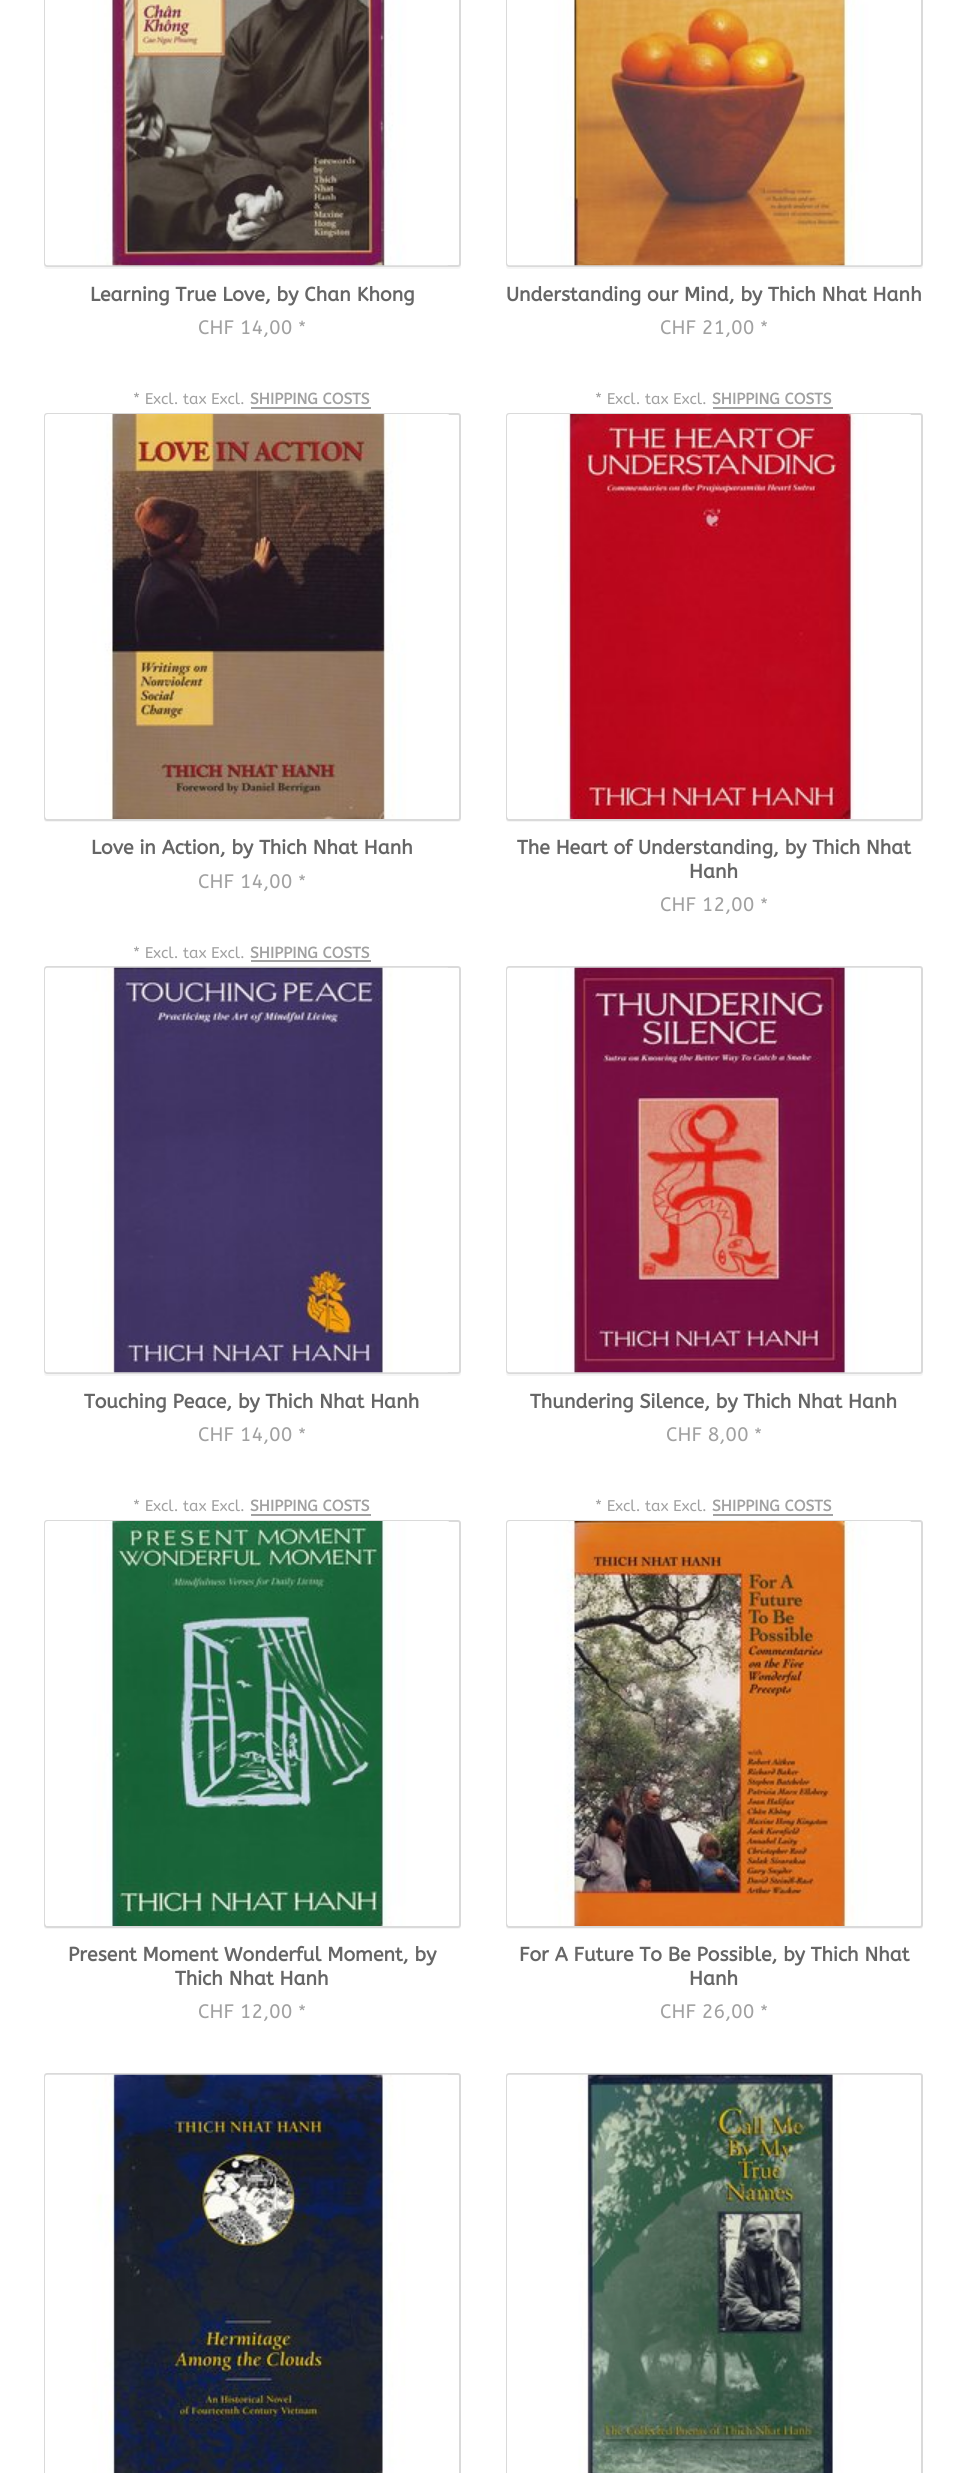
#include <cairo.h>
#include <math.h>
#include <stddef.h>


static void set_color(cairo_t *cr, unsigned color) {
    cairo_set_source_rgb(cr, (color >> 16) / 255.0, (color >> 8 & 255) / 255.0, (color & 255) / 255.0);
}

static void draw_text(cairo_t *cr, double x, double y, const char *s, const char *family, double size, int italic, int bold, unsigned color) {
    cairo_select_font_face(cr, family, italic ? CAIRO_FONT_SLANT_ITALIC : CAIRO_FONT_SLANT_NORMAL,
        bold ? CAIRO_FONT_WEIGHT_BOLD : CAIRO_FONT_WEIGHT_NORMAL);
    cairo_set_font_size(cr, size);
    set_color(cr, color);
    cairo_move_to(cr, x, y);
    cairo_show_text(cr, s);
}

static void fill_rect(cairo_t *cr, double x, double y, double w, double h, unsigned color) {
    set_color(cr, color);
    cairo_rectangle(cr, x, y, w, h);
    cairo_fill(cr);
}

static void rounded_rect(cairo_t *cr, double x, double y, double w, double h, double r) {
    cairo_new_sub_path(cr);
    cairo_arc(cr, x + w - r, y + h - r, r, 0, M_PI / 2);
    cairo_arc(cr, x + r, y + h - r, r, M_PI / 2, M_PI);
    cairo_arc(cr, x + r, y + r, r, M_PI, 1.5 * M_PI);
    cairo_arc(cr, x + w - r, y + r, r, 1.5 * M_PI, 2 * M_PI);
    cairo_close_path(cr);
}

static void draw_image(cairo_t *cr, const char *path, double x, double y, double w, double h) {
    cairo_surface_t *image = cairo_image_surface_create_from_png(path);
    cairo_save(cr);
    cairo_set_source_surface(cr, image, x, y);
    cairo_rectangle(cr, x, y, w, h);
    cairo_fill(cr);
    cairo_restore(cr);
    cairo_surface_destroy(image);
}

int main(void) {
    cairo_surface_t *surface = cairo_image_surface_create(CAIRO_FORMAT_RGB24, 969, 2473);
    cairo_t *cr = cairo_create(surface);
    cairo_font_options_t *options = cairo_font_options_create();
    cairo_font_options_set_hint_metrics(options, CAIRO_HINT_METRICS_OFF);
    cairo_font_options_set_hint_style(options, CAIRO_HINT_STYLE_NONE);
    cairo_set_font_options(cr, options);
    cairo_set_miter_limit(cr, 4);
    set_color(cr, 0xFFFFFF);
    cairo_paint(cr);
    set_color(cr, 0xF5F5F5);
    cairo_new_path(cr);
    cairo_move_to(cr, 44, 266);
    cairo_curve_to(cr, 44, 268, 45, 269, 47, 269);
    cairo_line_to(cr, 458, 269);
    cairo_curve_to(cr, 460, 269, 461, 268, 461, 266);
    cairo_line_to(cr, 461, -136);
    cairo_line_to(cr, 460, -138);
    cairo_line_to(cr, 460, 264);
    cairo_curve_to(cr, 460, 266, 459, 267, 458, 267);
    cairo_line_to(cr, 46, 267);
    cairo_curve_to(cr, 45, 267, 45, 266, 44, 266);
    cairo_close_path(cr);
    cairo_fill(cr);
    rounded_rect(cr, 45, -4, 415, 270, 2);
    set_color(cr, 0xDADADA);
    cairo_stroke(cr);
    draw_image(cr, "assets/img1.png", 45, 0, 403, 266);
    draw_text(cr, 90, 301, "Learning True Love, by Chan Khong", "ABeeZee", 19.5, 0, 1, 0x666666);
    draw_text(cr, 198, 334, "CHF 14,00", "ABeeZee", 19.5, 0, 0, 0xA1A1A1);
    draw_text(cr, 298, 334, "*", "ABeeZee", 18, 0, 0, 0xA1A1A1);
    draw_text(cr, 133, 404, "* Excl. tax Excl.", "ABeeZee", 15.5, 0, 0, 0xA1A1A1);
    draw_text(cr, 250, 404, "SHIPPING COSTS", "ABeeZee", 15.5, 0, 1, 0xA1A1A1);
    fill_rect(cr, 251, 407, 120, 2, 0xA1A1A1);
    set_color(cr, 0xF5F5F5);
    cairo_new_path(cr);
    cairo_move_to(cr, 506, 266);
    cairo_curve_to(cr, 506, 268, 507, 269, 509, 269);
    cairo_line_to(cr, 920, 269);
    cairo_curve_to(cr, 922, 269, 923, 268, 923, 266);
    cairo_line_to(cr, 923, -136);
    cairo_line_to(cr, 922, -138);
    cairo_line_to(cr, 922, 264);
    cairo_curve_to(cr, 922, 266, 921, 267, 920, 267);
    cairo_line_to(cr, 508, 267);
    cairo_curve_to(cr, 507, 267, 507, 266, 506, 266);
    cairo_close_path(cr);
    cairo_fill(cr);
    rounded_rect(cr, 507, -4, 415, 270, 2);
    set_color(cr, 0xDADADA);
    cairo_stroke(cr);
    draw_image(cr, "assets/img2.png", 507, 0, 403, 266);
    draw_text(cr, 506, 301, "Understanding our Mind, by Thich Nhat Hanh", "ABeeZee", 19.5, 0, 1, 0x666666);
    draw_text(cr, 660, 334, "CHF 21,00", "ABeeZee", 19.5, 0, 0, 0xA1A1A1);
    draw_text(cr, 760, 334, "*", "ABeeZee", 18, 0, 0, 0xA1A1A1);
    draw_text(cr, 595, 404, "* Excl. tax Excl.", "ABeeZee", 15.5, 0, 0, 0xA1A1A1);
    draw_text(cr, 712, 404, "SHIPPING COSTS", "ABeeZee", 15.5, 0, 1, 0xA1A1A1);
    fill_rect(cr, 713, 407, 120, 2, 0xA1A1A1);
    set_color(cr, 0xF5F5F5);
    cairo_new_path(cr);
    cairo_move_to(cr, 44, 819);
    cairo_curve_to(cr, 44, 821, 45, 822, 47, 822);
    cairo_line_to(cr, 458, 822);
    cairo_curve_to(cr, 460, 822, 461, 821, 461, 819);
    cairo_line_to(cr, 461, 417);
    cairo_line_to(cr, 460, 415);
    cairo_line_to(cr, 460, 818);
    cairo_curve_to(cr, 460, 819, 459, 820, 458, 820);
    cairo_line_to(cr, 46, 820);
    cairo_curve_to(cr, 45, 820, 45, 820, 44, 819);
    cairo_close_path(cr);
    cairo_fill(cr);
    rounded_rect(cr, 45, 414, 415, 406, 2);
    set_color(cr, 0xDADADA);
    cairo_stroke(cr);
    draw_image(cr, "assets/img3.png", 45, 414, 404, 405);
    draw_text(cr, 91, 854, "Love in Action, by Thich Nhat Hanh", "ABeeZee", 19.5, 0, 1, 0x666666);
    draw_text(cr, 198, 888, "CHF 14,00", "ABeeZee", 19.5, 0, 0, 0xA1A1A1);
    draw_text(cr, 298, 888, "*", "ABeeZee", 18, 0, 0, 0xA1A1A1);
    draw_text(cr, 133, 958, "* Excl. tax Excl.", "ABeeZee", 15.5, 0, 0, 0xA1A1A1);
    draw_text(cr, 250, 958, "SHIPPING COSTS", "ABeeZee", 15.5, 0, 1, 0xA1A1A1);
    fill_rect(cr, 251, 960, 120, 2, 0xA1A1A1);
    set_color(cr, 0xF5F5F5);
    cairo_new_path(cr);
    cairo_move_to(cr, 506, 819);
    cairo_curve_to(cr, 506, 821, 507, 822, 509, 822);
    cairo_line_to(cr, 920, 822);
    cairo_curve_to(cr, 922, 822, 923, 821, 923, 819);
    cairo_line_to(cr, 923, 417);
    cairo_line_to(cr, 922, 415);
    cairo_line_to(cr, 922, 818);
    cairo_curve_to(cr, 922, 819, 921, 820, 920, 820);
    cairo_line_to(cr, 508, 820);
    cairo_curve_to(cr, 507, 820, 507, 820, 506, 819);
    cairo_close_path(cr);
    cairo_fill(cr);
    rounded_rect(cr, 507, 414, 415, 406, 2);
    set_color(cr, 0xDADADA);
    cairo_stroke(cr);
    draw_image(cr, "assets/img4.png", 507, 414, 404, 405);
    draw_text(cr, 517, 854, "The Heart of Understanding, by Thich Nhat", "ABeeZee", 19.5, 0, 1, 0x666666);
    draw_text(cr, 689, 878, "Hanh", "ABeeZee", 19.5, 0, 1, 0x666666);
    draw_text(cr, 660, 911, "CHF 12,00", "ABeeZee", 19.5, 0, 0, 0xA1A1A1);
    draw_text(cr, 760, 911, "*", "ABeeZee", 18, 0, 0, 0xA1A1A1);
    set_color(cr, 0xF5F5F5);
    cairo_new_path(cr);
    cairo_move_to(cr, 44, 1373);
    cairo_curve_to(cr, 44, 1375, 45, 1376, 47, 1376);
    cairo_line_to(cr, 458, 1376);
    cairo_curve_to(cr, 460, 1376, 461, 1375, 461, 1373);
    cairo_line_to(cr, 461, 971);
    cairo_line_to(cr, 460, 969);
    cairo_line_to(cr, 460, 1371);
    cairo_curve_to(cr, 460, 1373, 459, 1374, 458, 1374);
    cairo_line_to(cr, 46, 1374);
    cairo_curve_to(cr, 45, 1374, 45, 1373, 44, 1373);
    cairo_close_path(cr);
    cairo_fill(cr);
    rounded_rect(cr, 45, 967, 415, 406, 2);
    set_color(cr, 0xDADADA);
    cairo_stroke(cr);
    draw_image(cr, "assets/img5.png", 45, 967, 403, 406);
    draw_text(cr, 84, 1408, "Touching Peace, by Thich Nhat Hanh", "ABeeZee", 19.5, 0, 1, 0x666666);
    draw_text(cr, 198, 1441, "CHF 14,00", "ABeeZee", 19.5, 0, 0, 0xA1A1A1);
    draw_text(cr, 298, 1441, "*", "ABeeZee", 18, 0, 0, 0xA1A1A1);
    draw_text(cr, 133, 1511, "* Excl. tax Excl.", "ABeeZee", 15.5, 0, 0, 0xA1A1A1);
    draw_text(cr, 250, 1511, "SHIPPING COSTS", "ABeeZee", 15.5, 0, 1, 0xA1A1A1);
    fill_rect(cr, 251, 1514, 120, 2, 0xA1A1A1);
    set_color(cr, 0xF5F5F5);
    cairo_new_path(cr);
    cairo_move_to(cr, 506, 1373);
    cairo_curve_to(cr, 506, 1375, 507, 1376, 509, 1376);
    cairo_line_to(cr, 920, 1376);
    cairo_curve_to(cr, 922, 1376, 923, 1375, 923, 1373);
    cairo_line_to(cr, 923, 971);
    cairo_line_to(cr, 922, 969);
    cairo_line_to(cr, 922, 1371);
    cairo_curve_to(cr, 922, 1373, 921, 1374, 920, 1374);
    cairo_line_to(cr, 508, 1374);
    cairo_curve_to(cr, 507, 1374, 507, 1373, 506, 1373);
    cairo_close_path(cr);
    cairo_fill(cr);
    rounded_rect(cr, 507, 967, 415, 406, 2);
    set_color(cr, 0xDADADA);
    cairo_stroke(cr);
    draw_image(cr, "assets/img6.png", 507, 967, 403, 406);
    draw_text(cr, 530, 1408, "Thundering Silence, by Thich Nhat Hanh", "ABeeZee", 19.5, 0, 1, 0x666666);
    draw_text(cr, 666, 1441, "CHF 8,00", "ABeeZee", 19.5, 0, 0, 0xA1A1A1);
    draw_text(cr, 754, 1441, "*", "ABeeZee", 18, 0, 0, 0xA1A1A1);
    draw_text(cr, 595, 1511, "* Excl. tax Excl.", "ABeeZee", 15.5, 0, 0, 0xA1A1A1);
    draw_text(cr, 712, 1511, "SHIPPING COSTS", "ABeeZee", 15.5, 0, 1, 0xA1A1A1);
    fill_rect(cr, 713, 1514, 120, 2, 0xA1A1A1);
    set_color(cr, 0xF5F5F5);
    cairo_new_path(cr);
    cairo_move_to(cr, 44, 1926);
    cairo_curve_to(cr, 44, 1928, 45, 1929, 47, 1929);
    cairo_line_to(cr, 458, 1929);
    cairo_curve_to(cr, 460, 1929, 461, 1928, 461, 1926);
    cairo_line_to(cr, 461, 1524);
    cairo_line_to(cr, 460, 1522);
    cairo_line_to(cr, 460, 1924);
    cairo_curve_to(cr, 460, 1926, 459, 1928, 458, 1928);
    cairo_line_to(cr, 46, 1928);
    cairo_curve_to(cr, 45, 1928, 45, 1927, 44, 1926);
    cairo_close_path(cr);
    cairo_fill(cr);
    rounded_rect(cr, 45, 1521, 415, 406, 2);
    set_color(cr, 0xDADADA);
    cairo_stroke(cr);
    draw_image(cr, "assets/img7.png", 45, 1521, 404, 405);
    draw_text(cr, 68, 1961, "Present Moment Wonderful Moment, by", "ABeeZee", 19.5, 0, 1, 0x666666);
    draw_text(cr, 175, 1985, "Thich Nhat Hanh", "ABeeZee", 19.5, 0, 1, 0x666666);
    draw_text(cr, 198, 2018, "CHF 12,00", "ABeeZee", 19.5, 0, 0, 0xA1A1A1);
    draw_text(cr, 298, 2018, "*", "ABeeZee", 18, 0, 0, 0xA1A1A1);
    set_color(cr, 0xF5F5F5);
    cairo_new_path(cr);
    cairo_move_to(cr, 506, 1926);
    cairo_curve_to(cr, 506, 1928, 507, 1929, 509, 1929);
    cairo_line_to(cr, 920, 1929);
    cairo_curve_to(cr, 922, 1929, 923, 1928, 923, 1926);
    cairo_line_to(cr, 923, 1524);
    cairo_line_to(cr, 922, 1522);
    cairo_line_to(cr, 922, 1924);
    cairo_curve_to(cr, 922, 1926, 921, 1928, 920, 1928);
    cairo_line_to(cr, 508, 1928);
    cairo_curve_to(cr, 507, 1928, 507, 1927, 506, 1926);
    cairo_close_path(cr);
    cairo_fill(cr);
    rounded_rect(cr, 507, 1521, 415, 406, 2);
    set_color(cr, 0xDADADA);
    cairo_stroke(cr);
    draw_image(cr, "assets/img8.png", 507, 1521, 404, 405);
    draw_text(cr, 519, 1961, "For A Future To Be Possible, by Thich Nhat", "ABeeZee", 19.5, 0, 1, 0x666666);
    draw_text(cr, 689, 1985, "Hanh", "ABeeZee", 19.5, 0, 1, 0x666666);
    draw_text(cr, 660, 2018, "CHF 26,00", "ABeeZee", 19.5, 0, 0, 0xA1A1A1);
    draw_text(cr, 760, 2018, "*", "ABeeZee", 18, 0, 0, 0xA1A1A1);
    rounded_rect(cr, 45, 2074, 415, 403, 2);
    set_color(cr, 0xDADADA);
    cairo_stroke(cr);
    draw_image(cr, "assets/img9.png", 45, 2074, 403, 399);
    rounded_rect(cr, 507, 2074, 415, 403, 2);
    cairo_stroke(cr);
    draw_image(cr, "assets/img10.png", 507, 2074, 403, 399);
    cairo_surface_write_to_png(surface, "output.png");
    cairo_font_options_destroy(options);
    cairo_destroy(cr);
    cairo_surface_destroy(surface);
    return 0;
}
